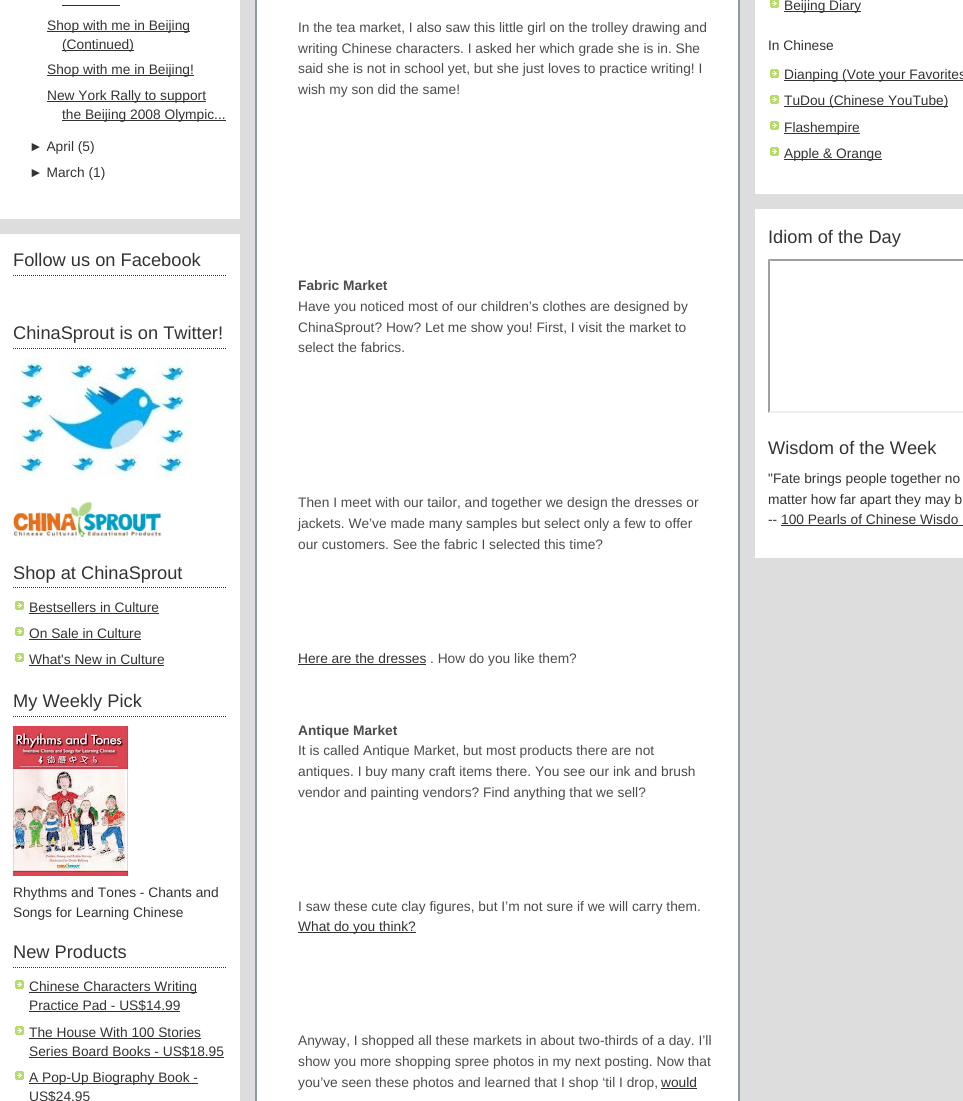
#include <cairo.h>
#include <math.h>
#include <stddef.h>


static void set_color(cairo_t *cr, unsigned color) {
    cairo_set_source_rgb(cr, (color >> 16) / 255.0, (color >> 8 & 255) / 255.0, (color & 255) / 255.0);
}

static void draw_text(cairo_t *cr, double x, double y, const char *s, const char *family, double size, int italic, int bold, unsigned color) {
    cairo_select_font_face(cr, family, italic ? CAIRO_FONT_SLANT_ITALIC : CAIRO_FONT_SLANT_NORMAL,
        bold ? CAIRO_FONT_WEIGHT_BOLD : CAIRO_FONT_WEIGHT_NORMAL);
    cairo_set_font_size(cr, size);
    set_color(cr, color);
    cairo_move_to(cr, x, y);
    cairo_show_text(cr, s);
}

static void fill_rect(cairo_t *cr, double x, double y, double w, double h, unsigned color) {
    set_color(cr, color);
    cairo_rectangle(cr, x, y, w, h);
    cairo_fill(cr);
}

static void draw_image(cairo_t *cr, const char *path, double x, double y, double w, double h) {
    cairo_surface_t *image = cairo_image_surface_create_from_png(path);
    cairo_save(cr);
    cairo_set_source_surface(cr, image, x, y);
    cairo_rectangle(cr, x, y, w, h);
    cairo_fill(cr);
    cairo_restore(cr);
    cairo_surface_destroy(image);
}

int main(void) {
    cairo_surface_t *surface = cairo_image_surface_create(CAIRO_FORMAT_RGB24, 963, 1101);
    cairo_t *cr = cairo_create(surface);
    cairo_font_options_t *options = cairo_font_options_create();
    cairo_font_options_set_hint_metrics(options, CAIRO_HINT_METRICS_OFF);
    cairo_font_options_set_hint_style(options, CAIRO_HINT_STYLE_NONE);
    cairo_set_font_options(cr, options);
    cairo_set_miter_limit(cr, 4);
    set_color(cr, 0xDDDDDD);
    cairo_paint(cr);
    fill_rect(cr, 0, 0, 240, 219, 0xFFFFFF);
    fill_rect(cr, 62, 5, 58, 1, 0x333333);
    fill_rect(cr, 47, 31, 143, 1, 0x333333);
    draw_text(cr, 47, 30, "Shop with me in Beijing", "Liberation Sans", 13.75, 0, 0, 0x333333);
    fill_rect(cr, 62, 50, 72, 1, 0x333333);
    draw_text(cr, 62, 49, "(Continued)", "Liberation Sans", 13.75, 0, 0, 0x333333);
    fill_rect(cr, 47, 75, 147, 1, 0x333333);
    draw_text(cr, 47, 74, "Shop with me in Beijing!", "Liberation Sans", 13.75, 0, 0, 0x333333);
    fill_rect(cr, 47, 101, 159, 1, 0x333333);
    draw_text(cr, 47, 100, "New York Rally to support", "Liberation Sans", 13.75, 0, 0, 0x333333);
    fill_rect(cr, 62, 120, 164, 1, 0x333333);
    draw_text(cr, 62, 119, "the Beijing 2008 Olympic...", "Liberation Sans", 13.75, 0, 0, 0x333333);
    draw_text(cr, 29, 151, "► April (5)", "Liberation Sans", 13.75, 0, 0, 0x333333);
    draw_text(cr, 29, 177, "► March (1)", "Liberation Sans", 13.75, 0, 0, 0x333333);
    fill_rect(cr, 0, 234, 240, 867, 0xFFFFFF);
    cairo_new_path(cr);
    cairo_move_to(cr, 13, 275.5);
    cairo_line_to(cr, 227, 275.5);
    set_color(cr, 0x333333);
    cairo_set_line_width(cr, 1);
    cairo_set_dash(cr, (double[]){1, 1}, 2, 0);
    cairo_stroke(cr);
    draw_text(cr, 13, 266, "Follow us on Facebook", "Liberation Sans", 18.25, 0, 0, 0x333333);
    cairo_new_path(cr);
    cairo_move_to(cr, 13, 348.5);
    cairo_line_to(cr, 227, 348.5);
    cairo_stroke(cr);
    draw_text(cr, 13, 339, "ChinaSprout is on Twitter!", "Liberation Sans", 18.25, 0, 0, 0x333333);
    draw_image(cr, "assets/img1.png", 13, 358, 176, 119);
    draw_image(cr, "assets/img2.png", 13, 501, 149, 37);
    cairo_new_path(cr);
    cairo_move_to(cr, 13, 587.5);
    cairo_line_to(cr, 227, 587.5);
    cairo_stroke(cr);
    draw_text(cr, 13, 579, "Shop at ChinaSprout", "Liberation Sans", 18.25, 0, 0, 0x333333);
    draw_image(cr, "assets/img3.png", 15, 601, 9, 9);
    draw_text(cr, 29, 612, "Bestsellers in Culture", "Liberation Sans", 13.75, 0, 0, 0x333333);
    fill_rect(cr, 29, 613, 130, 1, 0x333333);
    draw_image(cr, "assets/img3.png", 15, 627, 9, 9);
    draw_text(cr, 29, 638, "On Sale in Culture", "Liberation Sans", 13.75, 0, 0, 0x333333);
    fill_rect(cr, 29, 639, 112, 1, 0x333333);
    draw_image(cr, "assets/img3.png", 15, 653, 9, 9);
    draw_text(cr, 29, 664, "What's New in Culture", "Liberation Sans", 13.75, 0, 0, 0x333333);
    fill_rect(cr, 29, 665, 135, 1, 0x333333);
    cairo_new_path(cr);
    cairo_move_to(cr, 13, 716.5);
    cairo_line_to(cr, 227, 716.5);
    cairo_stroke(cr);
    draw_text(cr, 13, 707, "My Weekly Pick", "Liberation Sans", 18.25, 0, 0, 0x333333);
    draw_image(cr, "assets/img4.png", 13, 726, 115, 150);
    draw_text(cr, 13, 897, "Rhythms and Tones - Chants and", "Liberation Sans", 13.75, 0, 0, 0x333333);
    draw_text(cr, 13, 917, "Songs for Learning Chinese", "Liberation Sans", 13.75, 0, 0, 0x333333);
    cairo_new_path(cr);
    cairo_move_to(cr, 13, 967.5);
    cairo_line_to(cr, 227, 967.5);
    cairo_stroke(cr);
    draw_text(cr, 13, 958, "New Products", "Liberation Sans", 18.25, 0, 0, 0x333333);
    draw_image(cr, "assets/img3.png", 15, 980, 9, 9);
    fill_rect(cr, 29, 992, 168, 1, 0x333333);
    draw_text(cr, 29, 991, "Chinese Characters Writing", "Liberation Sans", 13.75, 0, 0, 0x333333);
    draw_text(cr, 29, 1010, "Practice Pad - US$14.99", "Liberation Sans", 13.75, 0, 0, 0x333333);
    fill_rect(cr, 29, 1011, 151, 1, 0x333333);
    draw_image(cr, "assets/img3.png", 15, 1026, 9, 9);
    draw_text(cr, 29, 1037, "The House With 100 Stories", "Liberation Sans", 13.75, 0, 0, 0x333333);
    fill_rect(cr, 29, 1038, 172, 1, 0x333333);
    draw_text(cr, 29, 1056, "Series Board Books - US$18.95", "Liberation Sans", 13.75, 0, 0, 0x333333);
    fill_rect(cr, 29, 1057, 195, 1, 0x333333);
    draw_image(cr, "assets/img3.png", 15, 1071, 9, 9);
    fill_rect(cr, 29, 1083, 169, 1, 0x333333);
    draw_text(cr, 29, 1082, "A Pop-Up Biography Book -", "Liberation Sans", 13.75, 0, 0, 0x333333);
    draw_text(cr, 29, 1101, "US$24.95", "Liberation Sans", 13.75, 0, 0, 0x333333);
    fill_rect(cr, 257, 0, 481, 1101, 0xFFFFFF);
    draw_image(cr, "assets/img5.png", 255, 0, 485, 1101);
    draw_text(cr, 298, 32, "In the tea market, I also saw this little girl on the trolley drawing and", "Liberation Sans", 13.75, 0, 0, 0x4C4C4C);
    draw_text(cr, 298, 53, "writing Chinese characters. I asked her which grade she is in. She", "Liberation Sans", 13.75, 0, 0, 0x4C4C4C);
    draw_text(cr, 298, 73, "said she is not in school yet, but she just loves to practice writing! I", "Liberation Sans", 13.75, 0, 0, 0x4C4C4C);
    draw_text(cr, 298, 94, "wish my son did the same!", "Liberation Sans", 13.75, 0, 0, 0x4C4C4C);
    draw_text(cr, 298, 290, "Fabric Market", "Liberation Sans", 13.75, 0, 1, 0x4C4C4C);
    draw_text(cr, 298, 311, "Have you noticed most of our children’s clothes are designed by", "Liberation Sans", 13.75, 0, 0, 0x4C4C4C);
    draw_text(cr, 298, 332, "ChinaSprout? How? Let me show you! First, I visit the market to", "Liberation Sans", 13.75, 0, 0, 0x4C4C4C);
    draw_text(cr, 298, 352, "select the fabrics.", "Liberation Sans", 13.75, 0, 0, 0x4C4C4C);
    draw_text(cr, 298, 507, "Then I meet with our tailor, and together we design the dresses or", "Liberation Sans", 13.75, 0, 0, 0x4C4C4C);
    draw_text(cr, 298, 528, "jackets. We’ve made many samples but select only a few to offer", "Liberation Sans", 13.75, 0, 0, 0x4C4C4C);
    draw_text(cr, 298, 549, "our customers. See the fabric I selected this time?", "Liberation Sans", 13.75, 0, 0, 0x4C4C4C);
    draw_text(cr, 298, 663, "Here are the dresses", "Liberation Sans", 13.75, 0, 0, 0x333333);
    fill_rect(cr, 298, 664, 128, 1, 0x333333);
    draw_text(cr, 430, 663, ". How do you like them?", "Liberation Sans", 13.75, 0, 0, 0x4C4C4C);
    draw_text(cr, 298, 735, "Antique Market", "Liberation Sans", 13.75, 0, 1, 0x4C4C4C);
    draw_text(cr, 298, 755, "It is called Antique Market, but most products there are not", "Liberation Sans", 13.75, 0, 0, 0x4C4C4C);
    draw_text(cr, 298, 776, "antiques. I buy many craft items there. You see our ink and brush", "Liberation Sans", 13.75, 0, 0, 0x4C4C4C);
    draw_text(cr, 298, 797, "vendor and painting vendors? Find anything that we sell?", "Liberation Sans", 13.75, 0, 0, 0x4C4C4C);
    draw_text(cr, 298, 911, "I saw these cute clay figures, but I’m not sure if we will carry them.", "Liberation Sans", 13.75, 0, 0, 0x4C4C4C);
    fill_rect(cr, 298, 932, 118, 1, 0x333333);
    draw_text(cr, 298, 931, "What do you think?", "Liberation Sans", 13.75, 0, 0, 0x333333);
    draw_text(cr, 298, 1045, "Anyway, I shopped all these markets in about two-thirds of a day. I’ll", "Liberation Sans", 13.75, 0, 0, 0x4C4C4C);
    draw_text(cr, 298, 1066, "show you more shopping spree photos in my next posting. Now that", "Liberation Sans", 13.75, 0, 0, 0x4C4C4C);
    draw_text(cr, 298, 1087, "you’ve seen these photos and learned that I shop ‘til I drop,", "Liberation Sans", 13.75, 0, 0, 0x4C4C4C);
    draw_text(cr, 661, 1087, "would", "Liberation Sans", 13.75, 0, 0, 0x333333);
    fill_rect(cr, 661, 1088, 36, 1, 0x333333);
    fill_rect(cr, 755, 0, 208, 194, 0xFFFFFF);
    draw_image(cr, "assets/img6.png", 770, 0, 9, 8);
    fill_rect(cr, 784, 11, 77, 1, 0x333333);
    draw_text(cr, 784, 10, "Beijing Diary", "Liberation Sans", 13.75, 0, 0, 0x333333);
    draw_text(cr, 768, 50, "In Chinese", "Liberation Sans", 13.75, 0, 0, 0x333333);
    draw_image(cr, "assets/img3.png", 770, 69, 9, 9);
    fill_rect(cr, 784, 80, 179, 1, 0x333333);
    draw_text(cr, 784, 79, "Dianping (Vote your Favorites", "Liberation Sans", 13.75, 0, 0, 0x333333);
    draw_image(cr, "assets/img3.png", 770, 95, 9, 9);
    fill_rect(cr, 784, 106, 164, 1, 0x333333);
    draw_text(cr, 784, 105, "TuDou (Chinese YouTube)", "Liberation Sans", 13.75, 0, 0, 0x333333);
    draw_image(cr, "assets/img3.png", 770, 121, 9, 9);
    fill_rect(cr, 784, 133, 76, 1, 0x333333);
    draw_text(cr, 784, 132, "Flashempire", "Liberation Sans", 13.75, 0, 0, 0x333333);
    draw_image(cr, "assets/img3.png", 770, 147, 9, 9);
    fill_rect(cr, 784, 159, 98, 1, 0x333333);
    draw_text(cr, 784, 158, "Apple & Orange", "Liberation Sans", 13.75, 0, 0, 0x333333);
    fill_rect(cr, 755, 209, 208, 349, 0xFFFFFF);
    draw_text(cr, 768, 243, "Idiom of the Day", "Liberation Sans", 18.25, 0, 0, 0x333333);
    set_color(cr, 0x9F9F9F);
    cairo_new_path(cr);
    cairo_move_to(cr, 768, 259);
    cairo_line_to(cr, 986, 259);
    cairo_line_to(cr, 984, 261);
    cairo_line_to(cr, 770, 261);
    cairo_close_path(cr);
    cairo_fill(cr);
    set_color(cr, 0xEEEEEE);
    cairo_new_path(cr);
    cairo_move_to(cr, 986, 413);
    cairo_line_to(cr, 768, 413);
    cairo_line_to(cr, 770, 411);
    cairo_line_to(cr, 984, 411);
    cairo_close_path(cr);
    cairo_fill(cr);
    set_color(cr, 0x9F9F9F);
    cairo_new_path(cr);
    cairo_move_to(cr, 768, 413);
    cairo_line_to(cr, 768, 259);
    cairo_line_to(cr, 770, 261);
    cairo_line_to(cr, 770, 411);
    cairo_close_path(cr);
    cairo_fill(cr);
    draw_text(cr, 768, 454, "Wisdom of the Week", "Liberation Sans", 18.25, 0, 0, 0x333333);
    draw_text(cr, 768, 483, "\"Fate brings people together no", "Liberation Sans", 13.75, 0, 0, 0x333333);
    draw_text(cr, 768, 504, "matter how far apart they may b", "Liberation Sans", 13.75, 0, 0, 0x333333);
    draw_text(cr, 768, 524, "-- 100 Pearls of Chinese Wisdo", "Liberation Sans", 13.75, 0, 0, 0x333333);
    fill_rect(cr, 781, 525, 182, 1, 0x333333);
    cairo_surface_write_to_png(surface, "output.png");
    cairo_font_options_destroy(options);
    cairo_destroy(cr);
    cairo_surface_destroy(surface);
    return 0;
}
